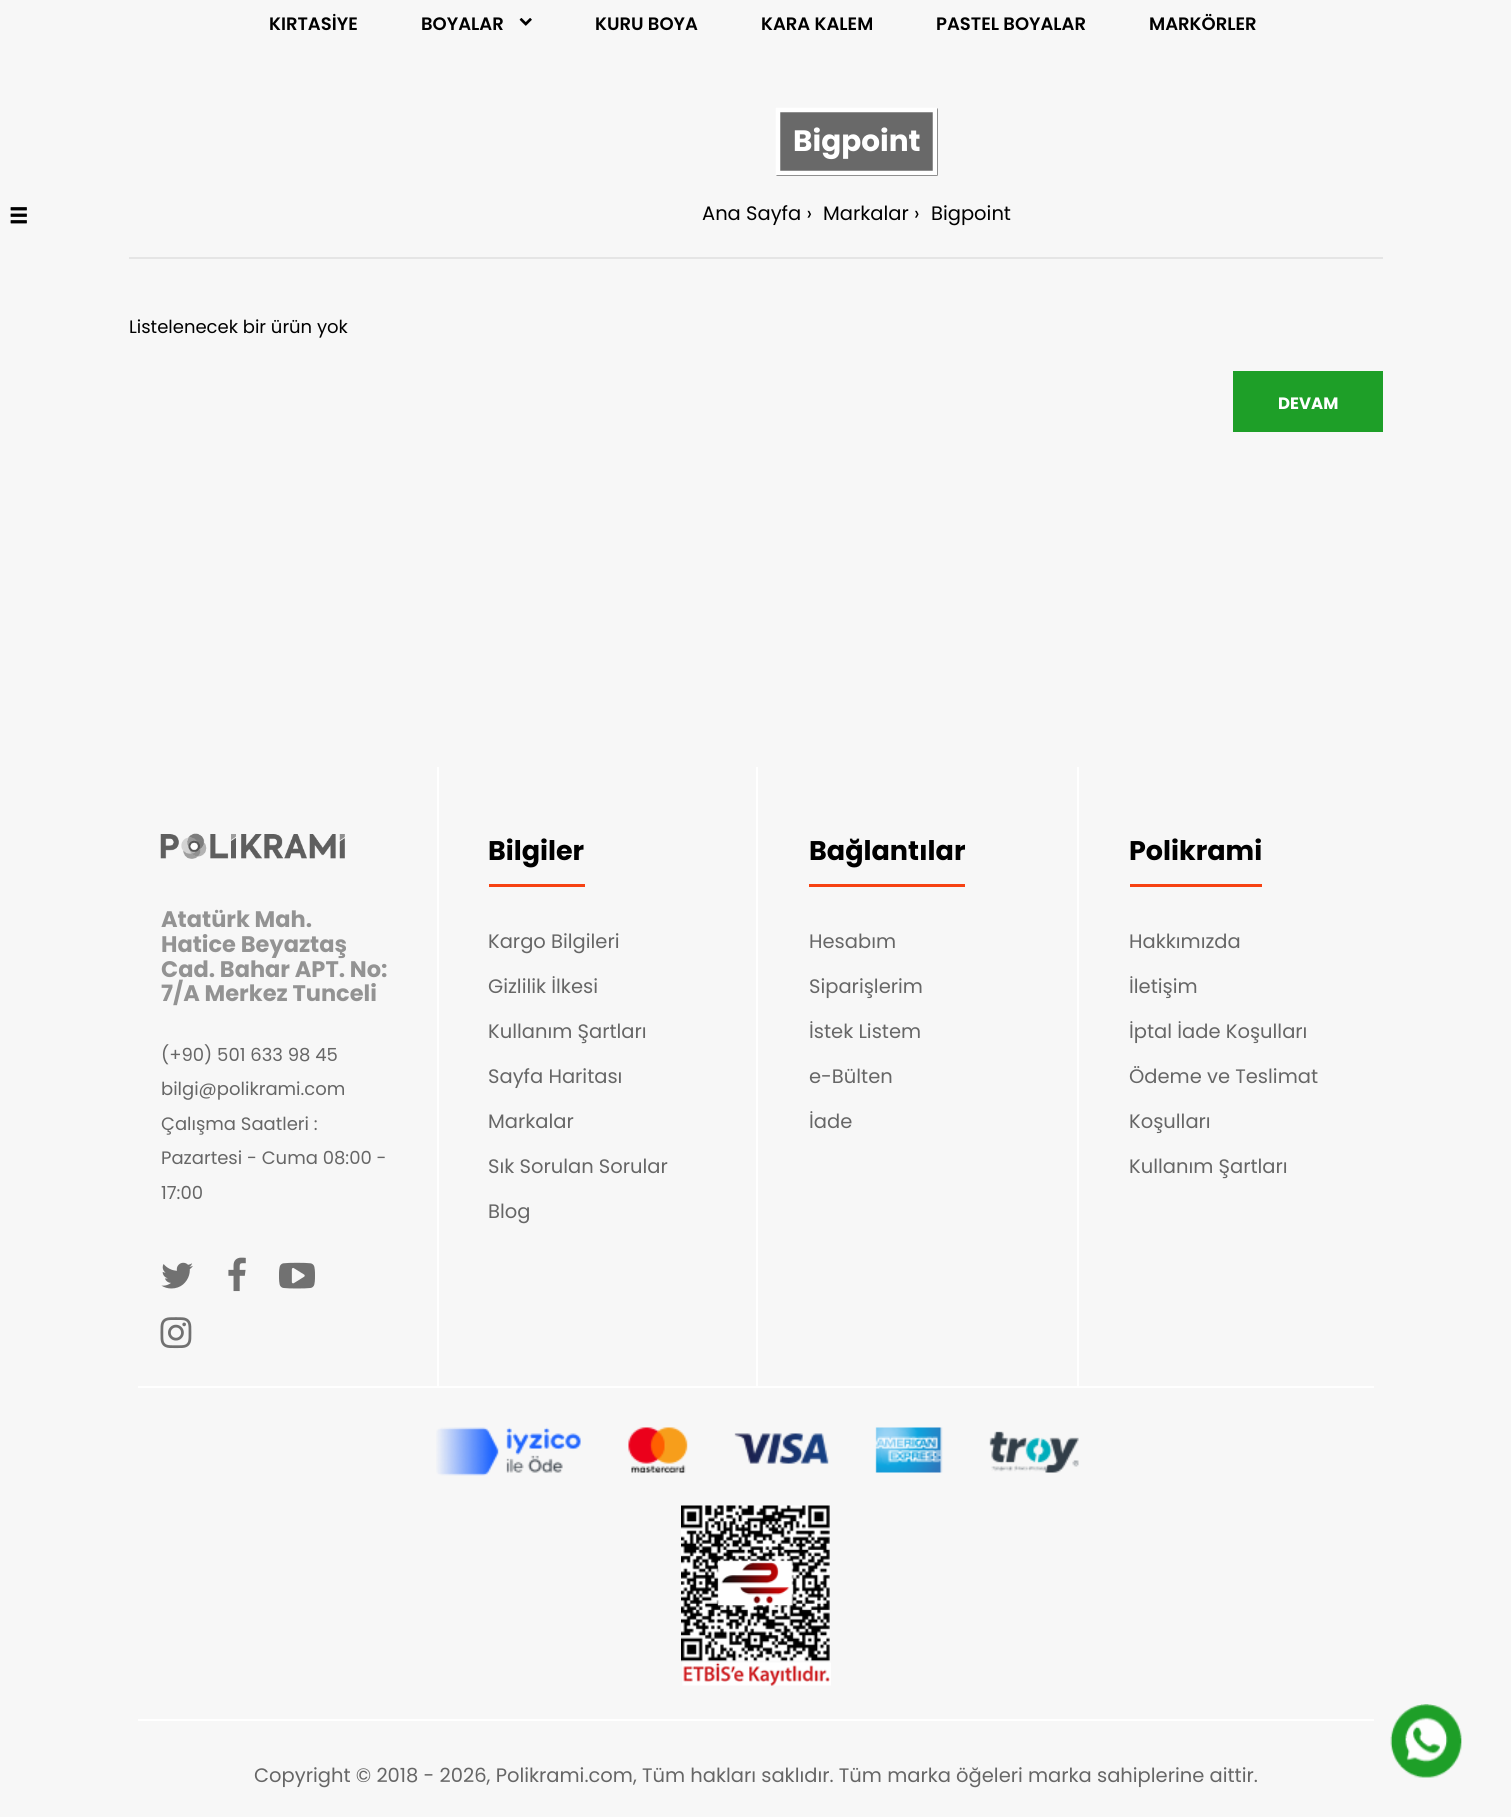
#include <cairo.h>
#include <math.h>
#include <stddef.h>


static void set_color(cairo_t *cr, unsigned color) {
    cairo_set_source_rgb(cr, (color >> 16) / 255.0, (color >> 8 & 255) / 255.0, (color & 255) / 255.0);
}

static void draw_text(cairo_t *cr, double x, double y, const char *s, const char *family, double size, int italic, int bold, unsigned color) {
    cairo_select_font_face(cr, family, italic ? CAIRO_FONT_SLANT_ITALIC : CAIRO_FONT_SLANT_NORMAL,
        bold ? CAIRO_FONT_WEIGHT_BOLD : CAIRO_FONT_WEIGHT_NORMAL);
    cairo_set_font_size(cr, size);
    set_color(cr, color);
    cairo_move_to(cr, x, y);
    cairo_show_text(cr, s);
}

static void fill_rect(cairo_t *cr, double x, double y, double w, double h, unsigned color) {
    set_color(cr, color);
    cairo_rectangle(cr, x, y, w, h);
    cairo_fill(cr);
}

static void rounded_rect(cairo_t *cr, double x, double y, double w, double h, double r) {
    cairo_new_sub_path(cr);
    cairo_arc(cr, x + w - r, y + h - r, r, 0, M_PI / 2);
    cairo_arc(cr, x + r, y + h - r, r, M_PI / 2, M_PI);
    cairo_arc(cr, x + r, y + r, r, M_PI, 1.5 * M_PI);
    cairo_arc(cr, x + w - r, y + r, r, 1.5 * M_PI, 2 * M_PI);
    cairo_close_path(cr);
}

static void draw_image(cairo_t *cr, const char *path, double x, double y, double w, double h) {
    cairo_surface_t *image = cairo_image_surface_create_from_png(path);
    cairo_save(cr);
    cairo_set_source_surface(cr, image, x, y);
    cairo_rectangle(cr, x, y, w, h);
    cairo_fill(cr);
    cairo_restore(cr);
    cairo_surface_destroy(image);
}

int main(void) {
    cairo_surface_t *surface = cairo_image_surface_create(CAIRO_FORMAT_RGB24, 1511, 1817);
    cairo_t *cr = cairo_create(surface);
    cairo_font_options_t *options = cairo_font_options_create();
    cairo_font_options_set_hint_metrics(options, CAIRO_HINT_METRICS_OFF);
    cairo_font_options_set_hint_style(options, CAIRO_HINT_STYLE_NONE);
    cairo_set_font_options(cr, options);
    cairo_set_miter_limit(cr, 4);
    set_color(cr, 0xF7F7F7);
    cairo_paint(cr);
    draw_text(cr, 269, 30, "KIRTASİYE", "Poppins SemiBold", 18, 0, 0, 0x000000);
    draw_text(cr, 421, 30, "BOYALAR", "Poppins SemiBold", 18, 0, 0, 0x000000);
    draw_image(cr, "assets/img1.png", 519, 18, 13, 8);
    draw_text(cr, 595, 30, "KURU BOYA", "Poppins SemiBold", 18, 0, 0, 0x000000);
    draw_text(cr, 761, 30, "KARA KALEM", "Poppins SemiBold", 18, 0, 0, 0x000000);
    draw_text(cr, 936, 30, "PASTEL BOYALAR", "Poppins SemiBold", 18, 0, 0, 0x000000);
    draw_text(cr, 1149, 30, "MARKÖRLER", "Poppins SemiBold", 18, 0, 0, 0x000000);
    draw_image(cr, "assets/img2.png", 10, 207, 17, 17);
    fill_rect(cr, 129, 257, 1254, 2, 0xE5E5E5);
    set_color(cr, 0x696969);
    rounded_rect(cr, 776, 108, 162, 68, 1.5);
    cairo_fill(cr);
    cairo_new_path(cr);
    cairo_move_to(cr, 778, 110);
    cairo_line_to(cr, 935, 110);
    cairo_line_to(cr, 935, 173);
    cairo_line_to(cr, 778, 173);
    cairo_close_path(cr);
    set_color(cr, 0xFFFFFF);
    cairo_set_line_width(cr, 4.5);
    cairo_stroke(cr);
    draw_text(cr, 793, 151, "Bigpoint", "Poppins", 29.5, 0, 1, 0xFFFFFF);
    draw_text(cr, 702, 220, "Ana Sayfa ›", "Poppins", 19.5, 0, 0, 0x000000);
    draw_text(cr, 823, 220, "Markalar ›", "Poppins", 19.5, 0, 0, 0x000000);
    draw_text(cr, 931, 220, "Bigpoint", "Poppins", 19.5, 0, 0, 0x000000);
    draw_text(cr, 129, 333, "Listelenecek bir ürün yok", "Poppins", 18, 0, 0, 0x000000);
    fill_rect(cr, 1233, 371, 150, 61, 0x1E9F28);
    draw_text(cr, 1278, 409, "DEVAM", "Poppins", 16.5, 0, 1, 0xFFFFFF);
    draw_image(cr, "assets/img3.png", 160, 833, 185, 26);
    draw_text(cr, 161, 927, "Atatürk Mah.", "Poppins", 22.5, 0, 1, 0x939393);
    draw_text(cr, 161, 952, "Hatice Beyaztaş", "Poppins", 22.5, 0, 1, 0x939393);
    draw_text(cr, 161, 977, "Cad. Bahar APT. No:", "Poppins", 22.5, 0, 1, 0x939393);
    draw_text(cr, 161, 1001, "7/A Merkez Tunceli", "Poppins", 22.5, 0, 1, 0x939393);
    draw_text(cr, 161, 1061, "(+90) 501 633 98 45", "Poppins", 18, 0, 0, 0x666666);
    draw_text(cr, 161, 1095, "bilgi@polikrami.com", "Poppins", 18, 0, 0, 0x666666);
    draw_text(cr, 161, 1130, "Çalışma Saatleri :", "Poppins", 18, 0, 0, 0x666666);
    draw_text(cr, 161, 1164, "Pazartesi - Cuma 08:00 -", "Poppins", 18, 0, 0, 0x666666);
    draw_text(cr, 161, 1199, "17:00", "Poppins", 18, 0, 0, 0x666666);
    draw_image(cr, "assets/img4.png", 161, 1262, 32, 27);
    draw_image(cr, "assets/img5.png", 228, 1257, 18, 35);
    draw_image(cr, "assets/img6.png", 279, 1262, 36, 27);
    draw_image(cr, "assets/img7.png", 160, 1317, 32, 32);
    fill_rect(cr, 437, 767, 2, 619, 0xFFFFFF);
    fill_rect(cr, 489, 884, 96, 3, 0xF74212);
    draw_text(cr, 488, 860, "Bilgiler", "Poppins", 27, 0, 1, 0x000000);
    draw_text(cr, 488, 948, "Kargo Bilgileri", "Poppins", 19.5, 0, 0, 0x666666);
    draw_text(cr, 488, 993, "Gizlilik İlkesi", "Poppins", 19.5, 0, 0, 0x666666);
    draw_text(cr, 488, 1038, "Kullanım Şartları", "Poppins", 19.5, 0, 0, 0x666666);
    draw_text(cr, 488, 1083, "Sayfa Haritası", "Poppins", 19.5, 0, 0, 0x666666);
    draw_text(cr, 488, 1128, "Markalar", "Poppins", 19.5, 0, 0, 0x666666);
    draw_text(cr, 488, 1173, "Sık Sorulan Sorular", "Poppins", 19.5, 0, 0, 0x666666);
    draw_text(cr, 488, 1218, "Blog", "Poppins", 19.5, 0, 0, 0x666666);
    fill_rect(cr, 756, 767, 2, 619, 0xFFFFFF);
    fill_rect(cr, 809, 884, 156, 3, 0xF74212);
    draw_text(cr, 809, 860, "Bağlantılar", "Poppins", 27, 0, 1, 0x000000);
    draw_text(cr, 809, 948, "Hesabım", "Poppins", 19.5, 0, 0, 0x666666);
    draw_text(cr, 809, 993, "Siparişlerim", "Poppins", 19.5, 0, 0, 0x666666);
    draw_text(cr, 809, 1038, "İstek Listem", "Poppins", 19.5, 0, 0, 0x666666);
    draw_text(cr, 809, 1083, "e-Bülten", "Poppins", 19.5, 0, 0, 0x666666);
    draw_text(cr, 809, 1128, "İade", "Poppins", 19.5, 0, 0, 0x666666);
    fill_rect(cr, 1077, 767, 2, 619, 0xFFFFFF);
    fill_rect(cr, 1130, 884, 132, 3, 0xF74212);
    draw_text(cr, 1129, 860, "Polikrami", "Poppins", 27, 0, 1, 0x000000);
    draw_text(cr, 1129, 948, "Hakkımızda", "Poppins", 19.5, 0, 0, 0x666666);
    draw_text(cr, 1129, 993, "İletişim", "Poppins", 19.5, 0, 0, 0x666666);
    draw_text(cr, 1129, 1038, "İptal İade Koşulları", "Poppins", 19.5, 0, 0, 0x666666);
    draw_text(cr, 1129, 1083, "Ödeme ve Teslimat", "Poppins", 19.5, 0, 0, 0x666666);
    draw_text(cr, 1129, 1128, "Koşulları", "Poppins", 19.5, 0, 0, 0x666666);
    draw_text(cr, 1129, 1173, "Kullanım Şartları", "Poppins", 19.5, 0, 0, 0x666666);
    fill_rect(cr, 138, 1386, 1236, 2, 0xFFFFFF);
    draw_image(cr, "assets/img8.png", 436, 1427, 643, 49);
    draw_image(cr, "assets/img9.png", 681, 1505, 150, 181);
    fill_rect(cr, 138, 1719, 1236, 2, 0xFFFFFF);
    draw_text(cr, 254, 1782, "Copyright © 2018 - 2026, Polikrami.com, Tüm hakları saklıdır. Tüm marka öğeleri marka sahiplerine aittir.", "Poppins", 19.5, 0, 0, 0x666666);
    draw_image(cr, "assets/img10.png", 1390, 1704, 72, 74);
    cairo_surface_write_to_png(surface, "output.png");
    cairo_font_options_destroy(options);
    cairo_destroy(cr);
    cairo_surface_destroy(surface);
    return 0;
}
